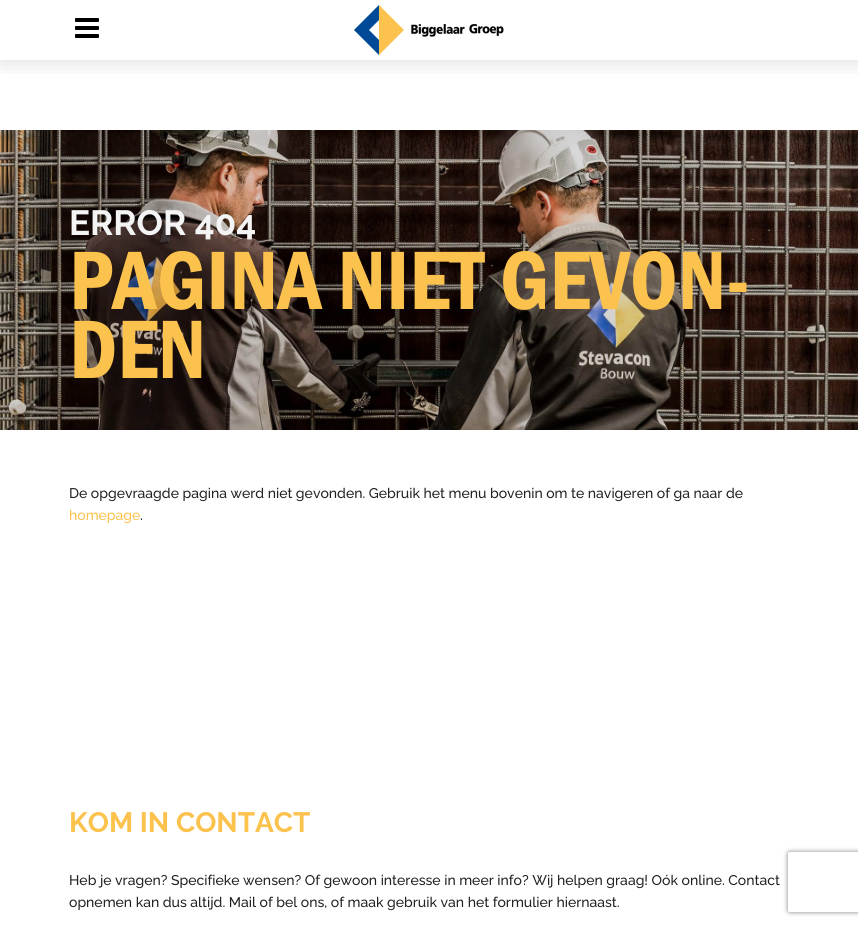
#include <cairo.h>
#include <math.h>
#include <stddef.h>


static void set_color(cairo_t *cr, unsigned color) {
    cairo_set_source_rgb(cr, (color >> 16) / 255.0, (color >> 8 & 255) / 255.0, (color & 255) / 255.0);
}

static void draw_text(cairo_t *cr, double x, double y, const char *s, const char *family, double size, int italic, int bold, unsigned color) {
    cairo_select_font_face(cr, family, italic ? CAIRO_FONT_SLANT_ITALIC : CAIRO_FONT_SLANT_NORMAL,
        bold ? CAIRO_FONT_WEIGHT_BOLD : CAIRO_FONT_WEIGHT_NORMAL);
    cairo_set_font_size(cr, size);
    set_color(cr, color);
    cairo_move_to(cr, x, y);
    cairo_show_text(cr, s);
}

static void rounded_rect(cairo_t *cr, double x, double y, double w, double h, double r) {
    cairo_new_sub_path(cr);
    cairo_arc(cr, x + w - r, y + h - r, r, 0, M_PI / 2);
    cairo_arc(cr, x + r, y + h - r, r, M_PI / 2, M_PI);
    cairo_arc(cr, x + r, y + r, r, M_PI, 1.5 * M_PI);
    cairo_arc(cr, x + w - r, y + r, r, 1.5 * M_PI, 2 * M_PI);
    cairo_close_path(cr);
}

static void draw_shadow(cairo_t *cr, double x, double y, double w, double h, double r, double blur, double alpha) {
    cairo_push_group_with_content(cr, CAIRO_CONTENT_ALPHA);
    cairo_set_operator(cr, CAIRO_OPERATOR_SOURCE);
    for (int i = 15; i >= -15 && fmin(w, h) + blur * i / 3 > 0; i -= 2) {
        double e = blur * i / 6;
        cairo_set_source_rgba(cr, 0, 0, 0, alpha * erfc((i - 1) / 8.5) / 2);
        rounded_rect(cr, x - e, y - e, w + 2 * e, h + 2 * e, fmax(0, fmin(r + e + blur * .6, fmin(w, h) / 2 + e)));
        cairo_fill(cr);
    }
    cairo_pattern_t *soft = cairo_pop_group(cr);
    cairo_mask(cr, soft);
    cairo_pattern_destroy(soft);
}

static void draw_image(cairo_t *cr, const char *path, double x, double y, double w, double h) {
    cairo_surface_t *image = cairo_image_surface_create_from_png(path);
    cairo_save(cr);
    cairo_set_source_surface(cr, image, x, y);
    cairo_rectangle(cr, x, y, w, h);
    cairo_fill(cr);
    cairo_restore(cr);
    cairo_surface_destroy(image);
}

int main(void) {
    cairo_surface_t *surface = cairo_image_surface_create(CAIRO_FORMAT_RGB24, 858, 926);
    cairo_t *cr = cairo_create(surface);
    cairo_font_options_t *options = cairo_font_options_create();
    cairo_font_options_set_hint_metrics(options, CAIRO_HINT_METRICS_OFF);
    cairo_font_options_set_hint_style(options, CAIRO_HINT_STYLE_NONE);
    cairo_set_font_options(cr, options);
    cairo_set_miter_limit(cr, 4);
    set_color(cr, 0xFFFFFF);
    cairo_paint(cr);
    cairo_save(cr);
    cairo_rectangle(cr, 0, 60, 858, 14);
    cairo_clip(cr);
    set_color(cr, 0x000000);
    draw_shadow(cr, 0, 0, 858, 60, 0, 12.5, 0.15);
    cairo_restore(cr);
    draw_image(cr, "assets/img1.png", 75, 18, 24, 20);
    draw_image(cr, "assets/img2.png", 354, 5, 150, 50);
    draw_image(cr, "assets/img3.png", 0, 130, 858, 300);
    draw_text(cr, 69, 235, "ERROR 404", "Raleway", 35, 0, 1, 0xF4F4F4);
    draw_text(cr, 69, 309, "PAGINA NIET GEVON-", "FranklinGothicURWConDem", 85.75, 0, 0, 0xFCC24E);
    draw_text(cr, 69, 378, "DEN", "FranklinGothicURWConDem", 85.75, 0, 0, 0xFCC24E);
    draw_text(cr, 69, 498, "De opgevraagde pagina werd niet gevonden. Gebruik het menu bovenin om te navigeren of ga naar de", "Raleway Medium", 14, 0, 0, 0x222222);
    draw_text(cr, 69, 520, "homepage", "Raleway Medium", 14, 0, 0, 0xFCC24E);
    draw_text(cr, 140, 520, ".", "Raleway Medium", 14, 0, 0, 0x222222);
    draw_text(cr, 69, 832, "KOM IN CONTACT", "Raleway", 28, 0, 1, 0xFCC24E);
    cairo_save(cr);
    cairo_set_fill_rule(cr, CAIRO_FILL_RULE_EVEN_ODD);
    cairo_new_path(cr);
    cairo_move_to(cr, 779, 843);
    cairo_line_to(cr, 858, 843);
    cairo_line_to(cr, 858, 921);
    cairo_line_to(cr, 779, 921);
    cairo_close_path(cr);
    cairo_move_to(cr, 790, 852);
    cairo_line_to(cr, 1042, 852);
    cairo_curve_to(cr, 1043, 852, 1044, 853, 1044, 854);
    cairo_line_to(cr, 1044, 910);
    cairo_curve_to(cr, 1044, 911, 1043, 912, 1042, 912);
    cairo_line_to(cr, 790, 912);
    cairo_curve_to(cr, 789, 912, 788, 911, 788, 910);
    cairo_line_to(cr, 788, 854);
    cairo_curve_to(cr, 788, 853, 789, 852, 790, 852);
    cairo_close_path(cr);
    cairo_clip(cr);
    set_color(cr, 0x808080);
    draw_shadow(cr, 788, 852, 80, 60, 2, 2.5, 1);
    cairo_restore(cr);
    draw_text(cr, 69, 885, "Heb je vragen? Specifieke wensen? Of gewoon interesse in meer info? Wij helpen graag! Oók online. Contact", "Raleway Medium", 14, 0, 0, 0x222222);
    draw_text(cr, 69, 907, "opnemen kan dus altijd. Mail of bel ons, of maak gebruik van het formulier hiernaast.", "Raleway Medium", 14, 0, 0, 0x222222);
    cairo_surface_write_to_png(surface, "output.png");
    cairo_font_options_destroy(options);
    cairo_destroy(cr);
    cairo_surface_destroy(surface);
    return 0;
}
